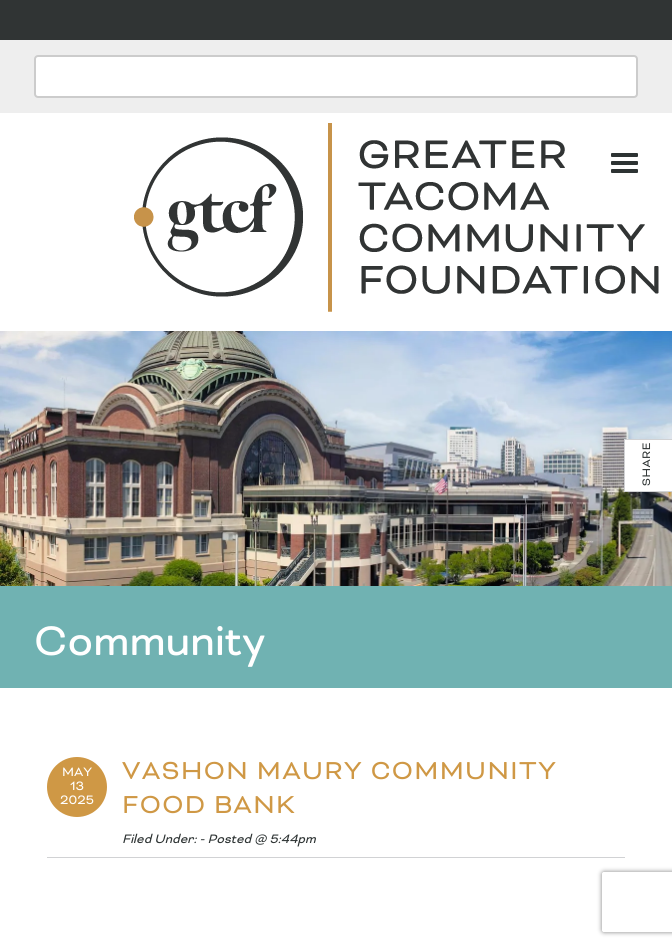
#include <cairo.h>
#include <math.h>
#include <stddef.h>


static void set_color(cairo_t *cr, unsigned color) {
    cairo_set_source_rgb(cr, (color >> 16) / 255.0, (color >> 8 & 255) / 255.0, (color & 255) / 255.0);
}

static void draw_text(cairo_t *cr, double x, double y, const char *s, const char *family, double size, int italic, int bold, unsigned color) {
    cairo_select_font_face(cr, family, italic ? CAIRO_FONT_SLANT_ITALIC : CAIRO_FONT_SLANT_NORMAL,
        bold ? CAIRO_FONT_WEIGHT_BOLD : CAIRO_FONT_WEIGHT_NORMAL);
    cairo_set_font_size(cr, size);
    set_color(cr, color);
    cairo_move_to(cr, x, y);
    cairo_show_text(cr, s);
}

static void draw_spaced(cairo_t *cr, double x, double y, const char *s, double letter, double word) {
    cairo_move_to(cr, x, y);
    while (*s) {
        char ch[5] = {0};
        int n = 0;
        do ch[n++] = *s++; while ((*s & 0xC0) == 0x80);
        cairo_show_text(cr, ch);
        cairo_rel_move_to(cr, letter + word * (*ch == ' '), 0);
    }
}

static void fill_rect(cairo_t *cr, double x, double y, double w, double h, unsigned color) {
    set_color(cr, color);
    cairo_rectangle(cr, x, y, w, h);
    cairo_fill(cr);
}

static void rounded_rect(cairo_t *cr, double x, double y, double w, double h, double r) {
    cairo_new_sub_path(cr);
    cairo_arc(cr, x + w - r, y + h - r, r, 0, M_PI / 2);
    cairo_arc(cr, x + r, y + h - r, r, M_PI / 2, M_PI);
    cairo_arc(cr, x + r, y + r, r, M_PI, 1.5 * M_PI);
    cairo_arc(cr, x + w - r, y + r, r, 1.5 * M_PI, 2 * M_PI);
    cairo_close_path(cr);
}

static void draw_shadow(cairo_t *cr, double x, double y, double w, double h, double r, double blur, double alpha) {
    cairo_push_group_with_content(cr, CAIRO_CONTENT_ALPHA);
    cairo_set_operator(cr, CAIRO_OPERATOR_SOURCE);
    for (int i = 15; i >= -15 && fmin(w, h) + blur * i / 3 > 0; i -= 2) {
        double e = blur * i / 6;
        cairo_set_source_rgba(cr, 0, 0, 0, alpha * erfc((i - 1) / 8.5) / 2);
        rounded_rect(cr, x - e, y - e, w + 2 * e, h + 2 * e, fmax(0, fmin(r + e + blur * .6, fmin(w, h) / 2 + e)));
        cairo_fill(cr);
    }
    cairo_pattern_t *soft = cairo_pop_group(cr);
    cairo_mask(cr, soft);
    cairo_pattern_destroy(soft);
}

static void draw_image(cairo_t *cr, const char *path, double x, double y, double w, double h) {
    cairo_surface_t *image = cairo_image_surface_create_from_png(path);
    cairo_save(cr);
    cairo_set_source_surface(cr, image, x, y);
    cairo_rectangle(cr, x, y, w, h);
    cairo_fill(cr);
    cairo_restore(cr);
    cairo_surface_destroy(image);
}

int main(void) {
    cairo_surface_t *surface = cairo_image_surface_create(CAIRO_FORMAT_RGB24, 672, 946);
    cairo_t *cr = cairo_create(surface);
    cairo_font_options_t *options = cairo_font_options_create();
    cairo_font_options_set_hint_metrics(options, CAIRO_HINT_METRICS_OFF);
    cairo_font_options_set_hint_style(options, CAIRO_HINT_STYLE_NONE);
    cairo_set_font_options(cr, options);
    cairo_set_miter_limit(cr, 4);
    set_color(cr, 0xEEEEEE);
    cairo_paint(cr);
    fill_rect(cr, 0, 0, 672, 40, 0x303434);
    set_color(cr, 0xFFFFFF);
    rounded_rect(cr, 35, 56, 602, 41, 3);
    cairo_fill_preserve(cr);
    set_color(cr, 0xCCCCCC);
    cairo_stroke(cr);
    fill_rect(cr, 0, 113, 672, 833, 0xFFFFFF);
    draw_image(cr, "assets/img2.png", 0, 331, 672, 255);
    cairo_rectangle(cr, 624.5, 439.5, 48, 52);
    cairo_fill_preserve(cr);
    set_color(cr, 0xD1D2D4);
    cairo_set_line_width(cr, 1);
    cairo_stroke(cr);
    cairo_select_font_face(cr, "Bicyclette", CAIRO_FONT_SLANT_NORMAL, CAIRO_FONT_WEIGHT_NORMAL);
    cairo_set_font_size(cr, 12.5);
    set_color(cr, 0x2D3333);
    cairo_save(cr);
    cairo_translate(cr, 650, 486);
    cairo_rotate(cr, -90 * M_PI / 180);
    draw_spaced(cr, 0, 0, "SHARE", 0.5, 0);
    cairo_restore(cr);
    draw_image(cr, "assets/img1.png", 134, 123, 525, 189);
    rounded_rect(cr, 611, 153, 27, 4, 1);
    cairo_fill(cr);
    rounded_rect(cr, 611, 161, 27, 4, 1);
    cairo_fill(cr);
    rounded_rect(cr, 611, 169, 27, 4, 1);
    cairo_fill(cr);
    fill_rect(cr, 0, 586, 672, 102, 0x70B2B2);
    draw_text(cr, 34, 655, "Community", "Bicyclette", 47.5, 0, 0, 0xFFFFFF);
    set_color(cr, 0xCF9845);
    cairo_new_path(cr);
    cairo_arc(cr, 77, 787, 30, 0, 2 * M_PI);
    cairo_fill(cr);
    draw_text(cr, 62, 776, "MAY", "Bicyclette", 14.1, 0, 0, 0xFFFFFF);
    draw_text(cr, 70, 790, "13", "Bicyclette", 14.1, 0, 0, 0xFFFFFF);
    draw_text(cr, 60, 804, "2025", "Bicyclette", 14.1, 0, 0, 0xFFFFFF);
    cairo_set_font_size(cr, 28.2);
    set_color(cr, 0xCF9845);
    draw_spaced(cr, 122, 779, "VASHON MAURY COMMUNITY", 1.4, 0);
    draw_spaced(cr, 122, 813, "FOOD BANK", 1.4, 0);
    fill_rect(cr, 47, 857, 578, 1, 0xD1D2D4);
    draw_text(cr, 122, 843, "Filed Under: - Posted @ 5:44pm", "Bicyclette", 14.1, 1, 0, 0x2D3333);
    cairo_save(cr);
    cairo_set_fill_rule(cr, CAIRO_FILL_RULE_EVEN_ODD);
    cairo_new_path(cr);
    cairo_move_to(cr, 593, 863);
    cairo_line_to(cr, 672, 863);
    cairo_line_to(cr, 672, 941);
    cairo_line_to(cr, 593, 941);
    cairo_close_path(cr);
    cairo_move_to(cr, 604, 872);
    cairo_line_to(cr, 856, 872);
    cairo_curve_to(cr, 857, 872, 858, 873, 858, 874);
    cairo_line_to(cr, 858, 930);
    cairo_curve_to(cr, 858, 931, 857, 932, 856, 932);
    cairo_line_to(cr, 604, 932);
    cairo_curve_to(cr, 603, 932, 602, 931, 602, 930);
    cairo_line_to(cr, 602, 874);
    cairo_curve_to(cr, 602, 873, 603, 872, 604, 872);
    cairo_close_path(cr);
    cairo_clip(cr);
    set_color(cr, 0x808080);
    draw_shadow(cr, 602, 872, 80, 60, 2, 2.5, 1);
    cairo_restore(cr);
    cairo_surface_write_to_png(surface, "output.png");
    cairo_font_options_destroy(options);
    cairo_destroy(cr);
    cairo_surface_destroy(surface);
    return 0;
}
